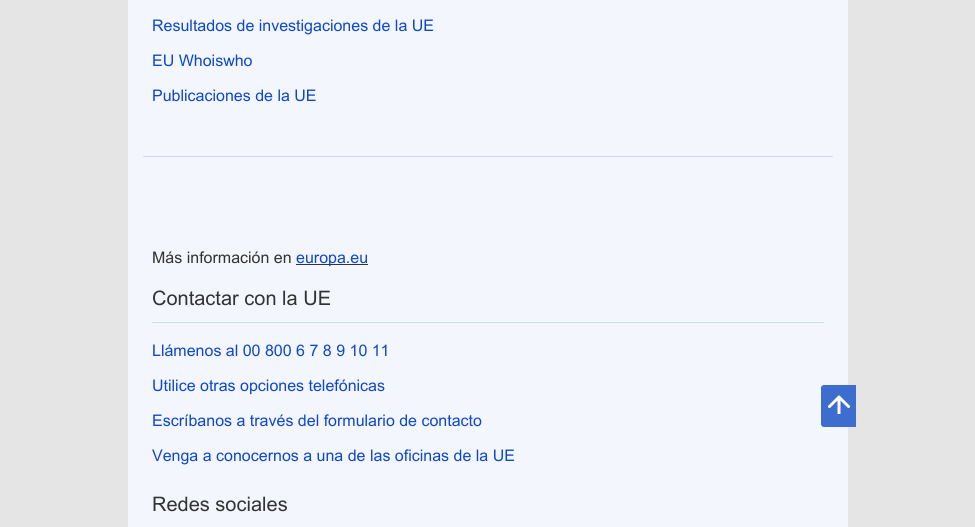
#include <cairo.h>
#include <math.h>
#include <stddef.h>


static void set_color(cairo_t *cr, unsigned color) {
    cairo_set_source_rgb(cr, (color >> 16) / 255.0, (color >> 8 & 255) / 255.0, (color & 255) / 255.0);
}

static void draw_text(cairo_t *cr, double x, double y, const char *s, const char *family, double size, int italic, int bold, unsigned color) {
    cairo_select_font_face(cr, family, italic ? CAIRO_FONT_SLANT_ITALIC : CAIRO_FONT_SLANT_NORMAL,
        bold ? CAIRO_FONT_WEIGHT_BOLD : CAIRO_FONT_WEIGHT_NORMAL);
    cairo_set_font_size(cr, size);
    set_color(cr, color);
    cairo_move_to(cr, x, y);
    cairo_show_text(cr, s);
}

static void fill_rect(cairo_t *cr, double x, double y, double w, double h, unsigned color) {
    set_color(cr, color);
    cairo_rectangle(cr, x, y, w, h);
    cairo_fill(cr);
}

static void draw_image(cairo_t *cr, const char *path, double x, double y, double w, double h) {
    cairo_surface_t *image = cairo_image_surface_create_from_png(path);
    cairo_save(cr);
    cairo_set_source_surface(cr, image, x, y);
    cairo_rectangle(cr, x, y, w, h);
    cairo_fill(cr);
    cairo_restore(cr);
    cairo_surface_destroy(image);
}

int main(void) {
    cairo_surface_t *surface = cairo_image_surface_create(CAIRO_FORMAT_RGB24, 975, 527);
    cairo_t *cr = cairo_create(surface);
    cairo_font_options_t *options = cairo_font_options_create();
    cairo_font_options_set_hint_metrics(options, CAIRO_HINT_METRICS_OFF);
    cairo_font_options_set_hint_style(options, CAIRO_HINT_STYLE_NONE);
    cairo_set_font_options(cr, options);
    cairo_set_miter_limit(cr, 4);
    set_color(cr, 0xE5E5E5);
    cairo_paint(cr);
    fill_rect(cr, 128, 0, 720, 527, 0xF3F6FC);
    draw_text(cr, 152, 31, "Resultados de investigaciones de la UE", "Arial", 16, 0, 0, 0x0E47CB);
    draw_text(cr, 152, 66, "EU Whoiswho", "Arial", 16, 0, 0, 0x0E47CB);
    draw_text(cr, 152, 101, "Publicaciones de la UE", "Arial", 16, 0, 0, 0x0E47CB);
    fill_rect(cr, 143, 156, 690, 1, 0xCFDAF5);
    draw_text(cr, 152, 263, "Más información en", "Arial", 16, 0, 0, 0x333333);
    fill_rect(cr, 296, 264, 72, 1, 0x333333);
    draw_text(cr, 296, 263, "europa.eu", "Arial", 16, 0, 0, 0x0E47CB);
    fill_rect(cr, 152, 322, 672, 1, 0xCFDAF5);
    draw_text(cr, 152, 305, "Contactar con la UE", "Arial", 20, 0, 0, 0x333333);
    draw_text(cr, 152, 356, "Llámenos al 00 800 6 7 8 9 10 11", "Arial", 16, 0, 0, 0x0E47CB);
    draw_text(cr, 152, 391, "Utilice otras opciones telefónicas", "Arial", 16, 0, 0, 0x0E47CB);
    draw_text(cr, 152, 426, "Escríbanos a través del formulario de contacto", "Arial", 16, 0, 0, 0x0E47CB);
    draw_text(cr, 152, 461, "Venga a conocernos a una de las oficinas de la UE", "Arial", 16, 0, 0, 0x0E47CB);
    draw_text(cr, 152, 511, "Redes sociales", "Arial", 20, 0, 0, 0x333333);
    draw_image(cr, "assets/img1.png", 821, 385, 35, 42);
    cairo_surface_write_to_png(surface, "output.png");
    cairo_font_options_destroy(options);
    cairo_destroy(cr);
    cairo_surface_destroy(surface);
    return 0;
}
